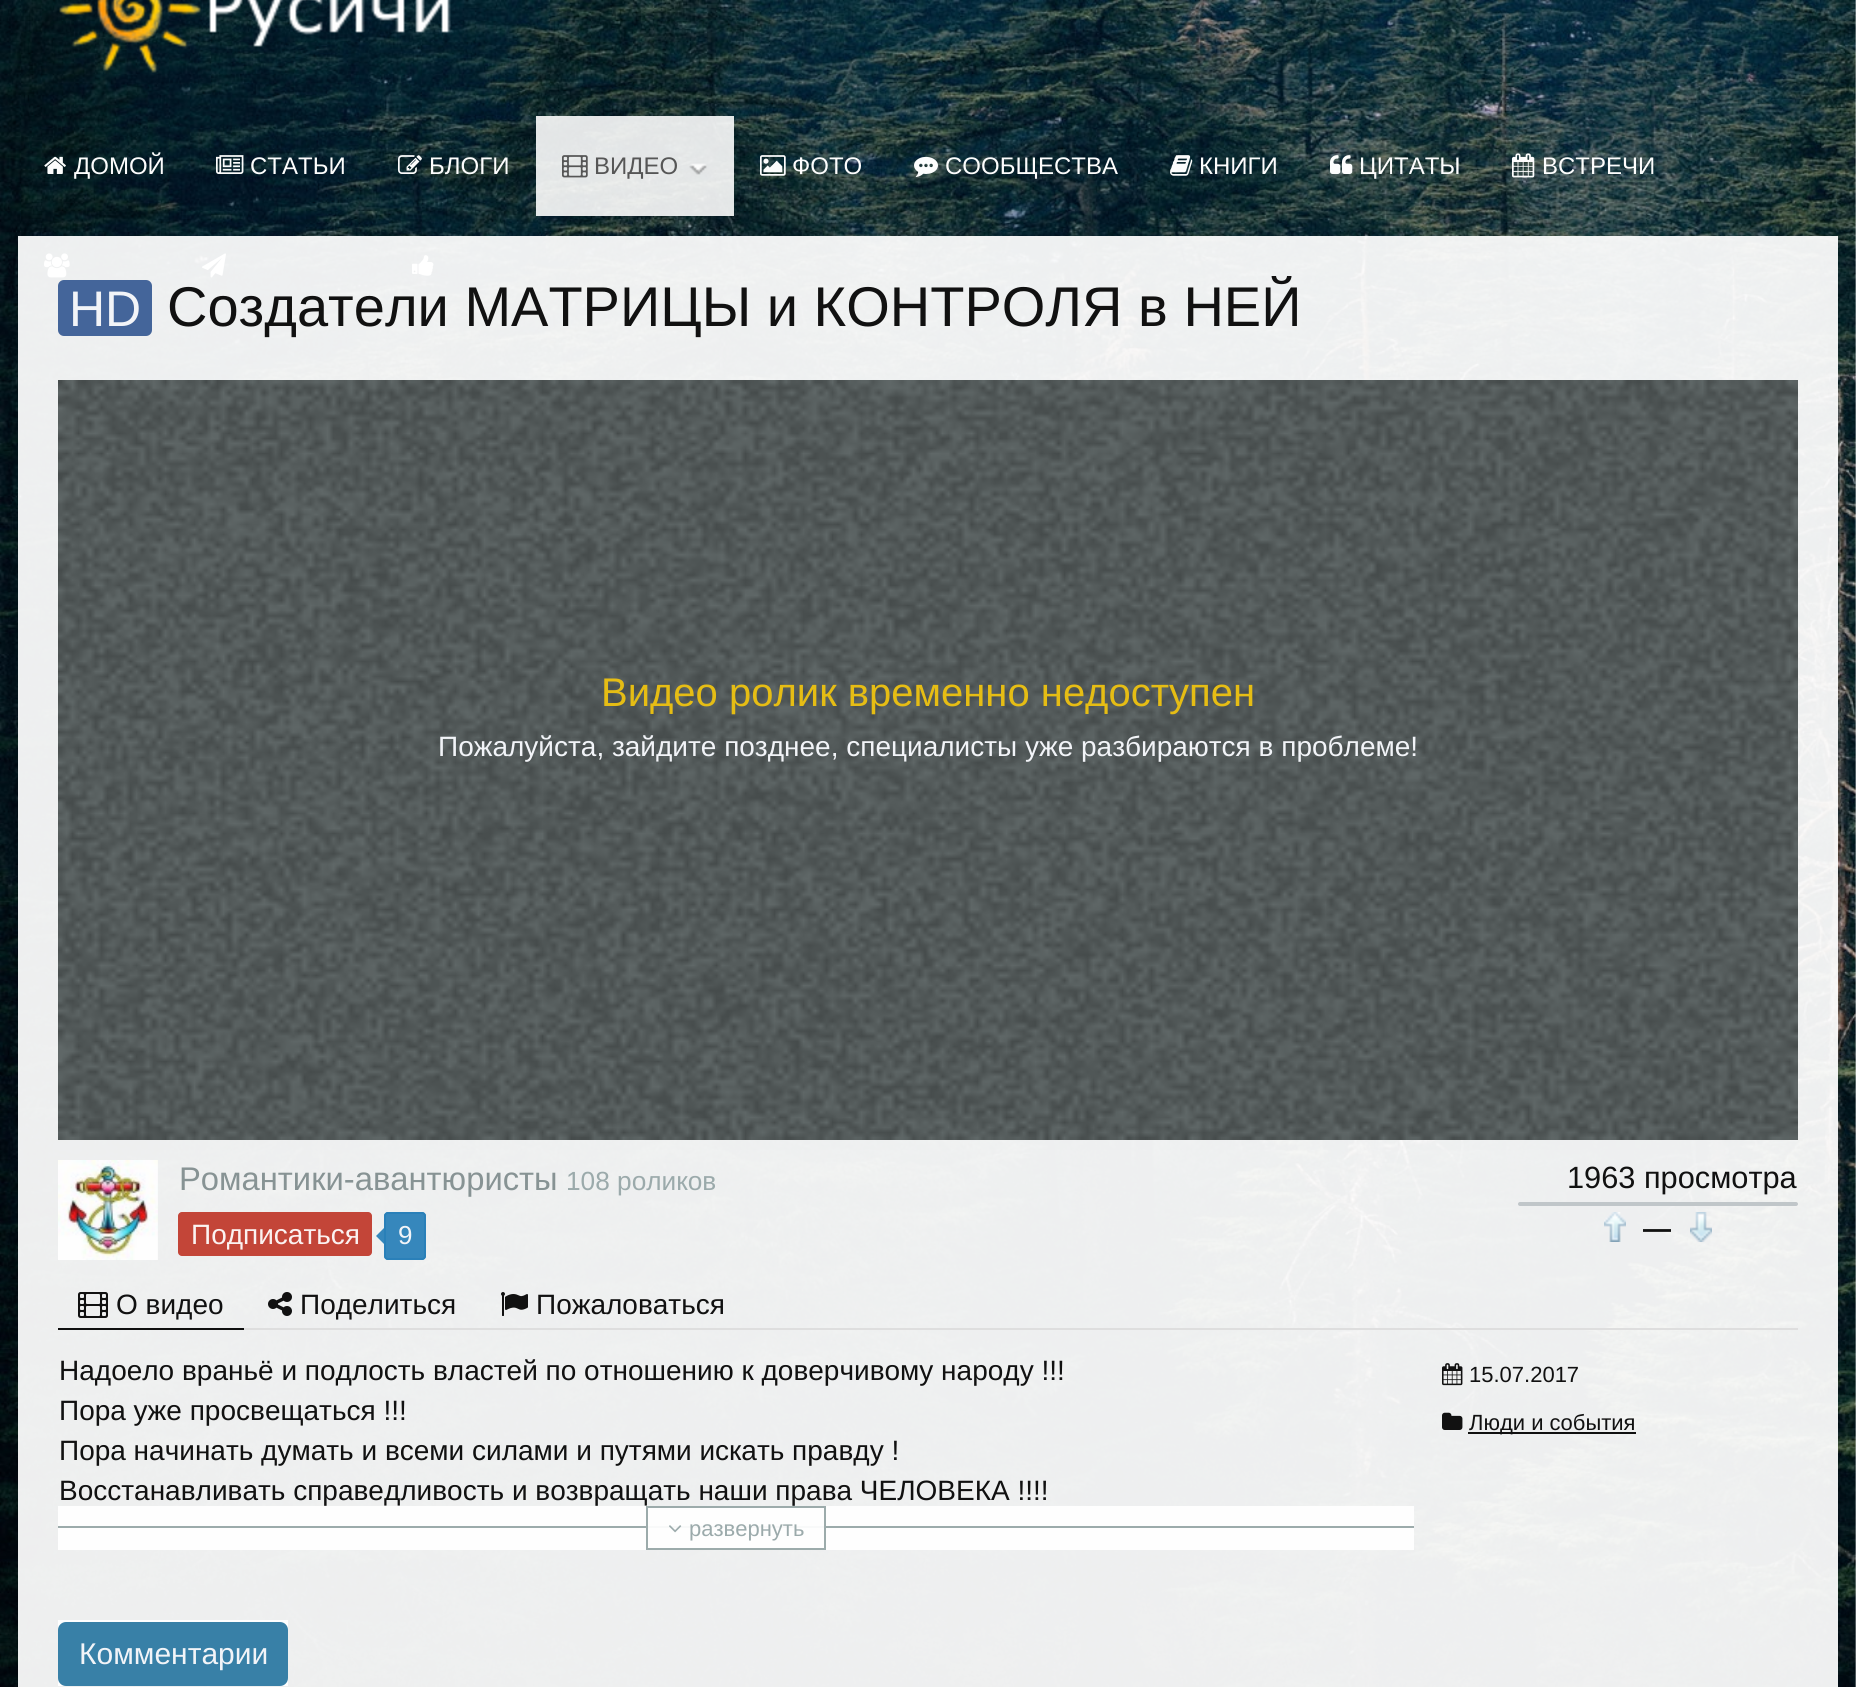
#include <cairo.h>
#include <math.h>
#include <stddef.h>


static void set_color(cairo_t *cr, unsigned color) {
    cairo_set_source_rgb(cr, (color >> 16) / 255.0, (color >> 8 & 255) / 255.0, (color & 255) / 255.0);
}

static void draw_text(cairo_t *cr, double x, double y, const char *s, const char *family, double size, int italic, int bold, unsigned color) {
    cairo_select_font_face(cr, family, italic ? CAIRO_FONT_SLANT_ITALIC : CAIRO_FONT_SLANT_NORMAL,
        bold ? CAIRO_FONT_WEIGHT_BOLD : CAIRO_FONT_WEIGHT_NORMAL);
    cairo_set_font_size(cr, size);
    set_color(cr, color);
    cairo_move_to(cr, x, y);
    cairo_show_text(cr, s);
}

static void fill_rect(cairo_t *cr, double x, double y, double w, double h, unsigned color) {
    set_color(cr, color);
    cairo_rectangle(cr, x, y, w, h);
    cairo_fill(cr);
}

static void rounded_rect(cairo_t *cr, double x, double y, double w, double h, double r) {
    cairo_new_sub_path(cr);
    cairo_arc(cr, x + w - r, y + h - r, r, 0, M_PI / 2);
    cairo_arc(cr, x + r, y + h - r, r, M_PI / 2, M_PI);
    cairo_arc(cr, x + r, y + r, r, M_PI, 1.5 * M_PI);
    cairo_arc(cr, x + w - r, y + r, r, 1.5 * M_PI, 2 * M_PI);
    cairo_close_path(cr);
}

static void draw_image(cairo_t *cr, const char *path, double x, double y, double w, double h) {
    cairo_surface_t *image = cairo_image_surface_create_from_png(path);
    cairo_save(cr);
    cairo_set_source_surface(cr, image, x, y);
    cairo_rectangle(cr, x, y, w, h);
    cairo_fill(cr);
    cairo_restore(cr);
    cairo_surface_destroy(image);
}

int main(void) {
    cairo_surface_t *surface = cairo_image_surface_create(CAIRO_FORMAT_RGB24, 1856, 1687);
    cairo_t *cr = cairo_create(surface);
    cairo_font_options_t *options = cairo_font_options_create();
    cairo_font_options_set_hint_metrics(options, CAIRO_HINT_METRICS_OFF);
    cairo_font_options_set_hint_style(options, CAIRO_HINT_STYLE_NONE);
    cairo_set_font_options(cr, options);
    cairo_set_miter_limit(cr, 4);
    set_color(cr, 0xFFFFFF);
    cairo_paint(cr);
    draw_image(cr, "assets/img1.png", 0, 0, 1856, 1687);
    draw_image(cr, "assets/img2.png", 59, 0, 392, 73);
    draw_image(cr, "assets/img3.png", 44, 156, 22, 18);
    draw_text(cr, 74, 174, "ДОМОЙ", "Liberation Sans", 24, 0, 0, 0xFDFDFD);
    draw_image(cr, "assets/img4.png", 216, 155, 28, 19);
    draw_text(cr, 250, 174, "СТАТЬИ", "Liberation Sans", 24, 0, 0, 0xFDFDFD);
    draw_image(cr, "assets/img5.png", 398, 155, 24, 19);
    draw_text(cr, 429, 174, "БЛОГИ", "Liberation Sans", 24, 0, 0, 0xFDFDFD);
    cairo_set_source_rgba(cr, 1, 1, 1, 0.89);
    cairo_rectangle(cr, 536, 116, 198, 100);
    cairo_fill(cr);
    draw_image(cr, "assets/img6.png", 689, 163, 18, 12);
    draw_image(cr, "assets/img7.png", 562, 155, 26, 23);
    draw_text(cr, 594, 174, "ВИДЕО", "Liberation Sans", 24, 0, 0, 0x565656);
    draw_image(cr, "assets/img8.png", 760, 155, 26, 21);
    draw_text(cr, 792, 174, "ФОТО", "Liberation Sans", 24, 0, 0, 0xFDFDFD);
    draw_image(cr, "assets/img9.png", 914, 156, 24, 21);
    draw_text(cr, 945, 174, "СООБЩЕСТВА", "Liberation Sans", 24, 0, 0, 0xFDFDFD);
    draw_image(cr, "assets/img10.png", 1170, 155, 23, 21);
    draw_text(cr, 1199, 174, "КНИГИ", "Liberation Sans", 24, 0, 0, 0xFDFDFD);
    draw_image(cr, "assets/img11.png", 1330, 155, 23, 19);
    draw_text(cr, 1359, 174, "ЦИТАТЫ", "Liberation Sans", 24, 0, 0, 0xFDFDFD);
    draw_image(cr, "assets/img12.png", 1512, 153, 23, 25);
    draw_text(cr, 1542, 174, "ВСТРЕЧИ", "Liberation Sans", 24, 0, 0, 0xFDFDFD);
    draw_image(cr, "assets/img13.png", 44, 253, 26, 25);
    draw_image(cr, "assets/img14.png", 202, 253, 24, 25);
    draw_image(cr, "assets/img15.png", 412, 255, 22, 21);
    cairo_set_source_rgba(cr, 1, 1, 1, 0.93);
    cairo_rectangle(cr, 18, 236, 1820, 1451);
    cairo_fill(cr);
    cairo_set_source_rgba(cr, 0.22, 0.361, 0.58, 0.93);
    rounded_rect(cr, 58, 280, 94, 56, 6);
    cairo_fill(cr);
    draw_text(cr, 69, 326, "HD", "Liberation Sans", 50, 0, 0, 0xF2F4F8);
    cairo_save(cr);
    cairo_rectangle(cr, 58, 276, 1740, 64);
    cairo_clip(cr);
    draw_text(cr, 167, 326, "Создатели МАТРИЦЫ и КОНТРОЛЯ в НЕЙ", "Liberation Sans", 56, 0, 0, 0x111111);
    cairo_restore(cr);
    fill_rect(cr, 58, 380, 1740, 760, 0x5F6767);
    draw_image(cr, "assets/img16.png", 58, 380, 1740, 760);
    draw_text(cr, 601, 706, "Видео ролик временно недоступен", "Liberation Sans", 40, 0, 0, 0xE6BD14);
    draw_text(cr, 438, 756, "Пожалуйста, зайдите позднее, специалисты уже разбираются в проблеме!", "Liberation Sans", 28, 0, 0, 0xF2F4F8);
    draw_image(cr, "assets/img17.png", 58, 1160, 100, 100);
    draw_text(cr, 179, 1190, "Романтики-авантюристы", "Liberation Sans", 32.75, 0, 0, 0x879394);
    draw_text(cr, 566, 1190, "108 роликов", "Liberation Sans", 26.25, 0, 0, 0x9BAAAB);
    cairo_set_source_rgba(cr, 0.753, 0.224, 0.169, 0.93);
    rounded_rect(cr, 178, 1212, 194, 44, 4);
    cairo_fill(cr);
    draw_text(cr, 191, 1244, "Подписаться", "Liberation Sans", 28, 0, 0, 0xFBF2F1);
    cairo_set_source_rgba(cr, 0.161, 0.502, 0.725, 0.93);
    rounded_rect(cr, 384, 1212, 42, 48, 4);
    cairo_fill(cr);
    rounded_rect(cr, 385, 1213, 40, 46, 3);
    cairo_stroke(cr);
    cairo_new_path(cr);
    cairo_move_to(cr, 386, 1226);
    cairo_line_to(cr, 386, 1246);
    cairo_line_to(cr, 376, 1236);
    cairo_close_path(cr);
    cairo_fill(cr);
    draw_text(cr, 398, 1244, "9", "Liberation Sans", 26, 0, 0, 0xF2F4F8);
    draw_text(cr, 1567, 1188, "1963 просмотра", "Liberation Sans", 30.75, 0, 0, 0x111111);
    cairo_set_source_rgba(cr, 0.741, 0.765, 0.78, 0.93);
    rounded_rect(cr, 1518, 1202, 280, 4, 2);
    cairo_fill(cr);
    draw_image(cr, "assets/img18.png", 1604, 1212, 22, 30);
    draw_text(cr, 1643, 1238, "—", "Liberation Sans", 28, 0, 1, 0x111111);
    draw_image(cr, "assets/img19.png", 1690, 1212, 22, 30);
    cairo_set_source_rgba(cr, 0.867, 0.867, 0.867, 0.93);
    cairo_rectangle(cr, 244, 1328, 1554, 2);
    cairo_fill(cr);
    fill_rect(cr, 58, 1328, 186, 2, 0x101010);
    draw_image(cr, "assets/img20.png", 78, 1292, 30, 26);
    draw_text(cr, 116, 1314, "О видео", "Liberation Sans", 28, 0, 0, 0x111111);
    draw_image(cr, "assets/img21.png", 268, 1292, 24, 24);
    draw_text(cr, 300, 1314, "Поделиться", "Liberation Sans", 28, 0, 0, 0x111111);
    draw_image(cr, "assets/img22.png", 501, 1292, 27, 24);
    draw_text(cr, 536, 1314, "Пожаловаться", "Liberation Sans", 28, 0, 0, 0x111111);
    draw_text(cr, 59, 1380, "Надоело враньё и подлость властей по отношению к доверчивому народу !!!", "Liberation Sans", 28, 0, 0, 0x111111);
    draw_text(cr, 59, 1420, "Пора уже просвещаться !!!", "Liberation Sans", 28, 0, 0, 0x111111);
    draw_text(cr, 59, 1460, "Пора начинать думать и всеми силами и путями искать правду !", "Liberation Sans", 28, 0, 0, 0x111111);
    draw_text(cr, 59, 1500, "Восстанавливать справедливость и возвращать наши права ЧЕЛОВЕКА !!!!", "Liberation Sans", 28, 0, 0, 0x111111);
    cairo_set_source_rgba(cr, 1, 1, 1, 0.93);
    cairo_rectangle(cr, 58, 1506, 1356, 44);
    cairo_fill(cr);
    cairo_set_source_rgba(cr, 0.584, 0.647, 0.651, 0.93);
    cairo_rectangle(cr, 58, 1526, 1356, 2);
    cairo_fill(cr);
    cairo_set_source_rgba(cr, 1, 1, 1, 0.93);
    cairo_rectangle(cr, 646, 1526, 180, 2);
    cairo_fill(cr);
    cairo_rectangle(cr, 647, 1507, 178, 42);
    cairo_set_source_rgba(cr, 0.584, 0.647, 0.651, 0.93);
    cairo_stroke(cr);
    draw_image(cr, "assets/img23.png", 669, 1525, 13, 8);
    draw_text(cr, 689, 1536, "развернуть", "Liberation Sans", 22, 0, 0, 0x9BAAAB);
    draw_image(cr, "assets/img24.png", 1442, 1363, 21, 23);
    draw_text(cr, 1469, 1382, "15.07.2017", "Liberation Sans", 22, 0, 0, 0x111111);
    draw_image(cr, "assets/img25.png", 1442, 1412, 21, 18);
    cairo_set_source_rgba(cr, 0, 0, 0, 0.93);
    cairo_rectangle(cr, 1468, 1432, 168, 2);
    cairo_fill(cr);
    draw_text(cr, 1469, 1430, "Люди и события", "Liberation Sans", 22, 0, 0, 0x111111);
    cairo_set_source_rgba(cr, 1, 1, 1, 0.93);
    cairo_rectangle(cr, 58, 1620, 230, 66);
    cairo_fill(cr);
    set_color(cr, 0x3880A7);
    rounded_rect(cr, 58, 1622, 230, 64, 8);
    cairo_fill(cr);
    draw_text(cr, 79, 1664, "Комментарии", "Liberation Sans", 30, 0, 0, 0xF2F4F8);
    cairo_surface_write_to_png(surface, "output.png");
    cairo_font_options_destroy(options);
    cairo_destroy(cr);
    cairo_surface_destroy(surface);
    return 0;
}
